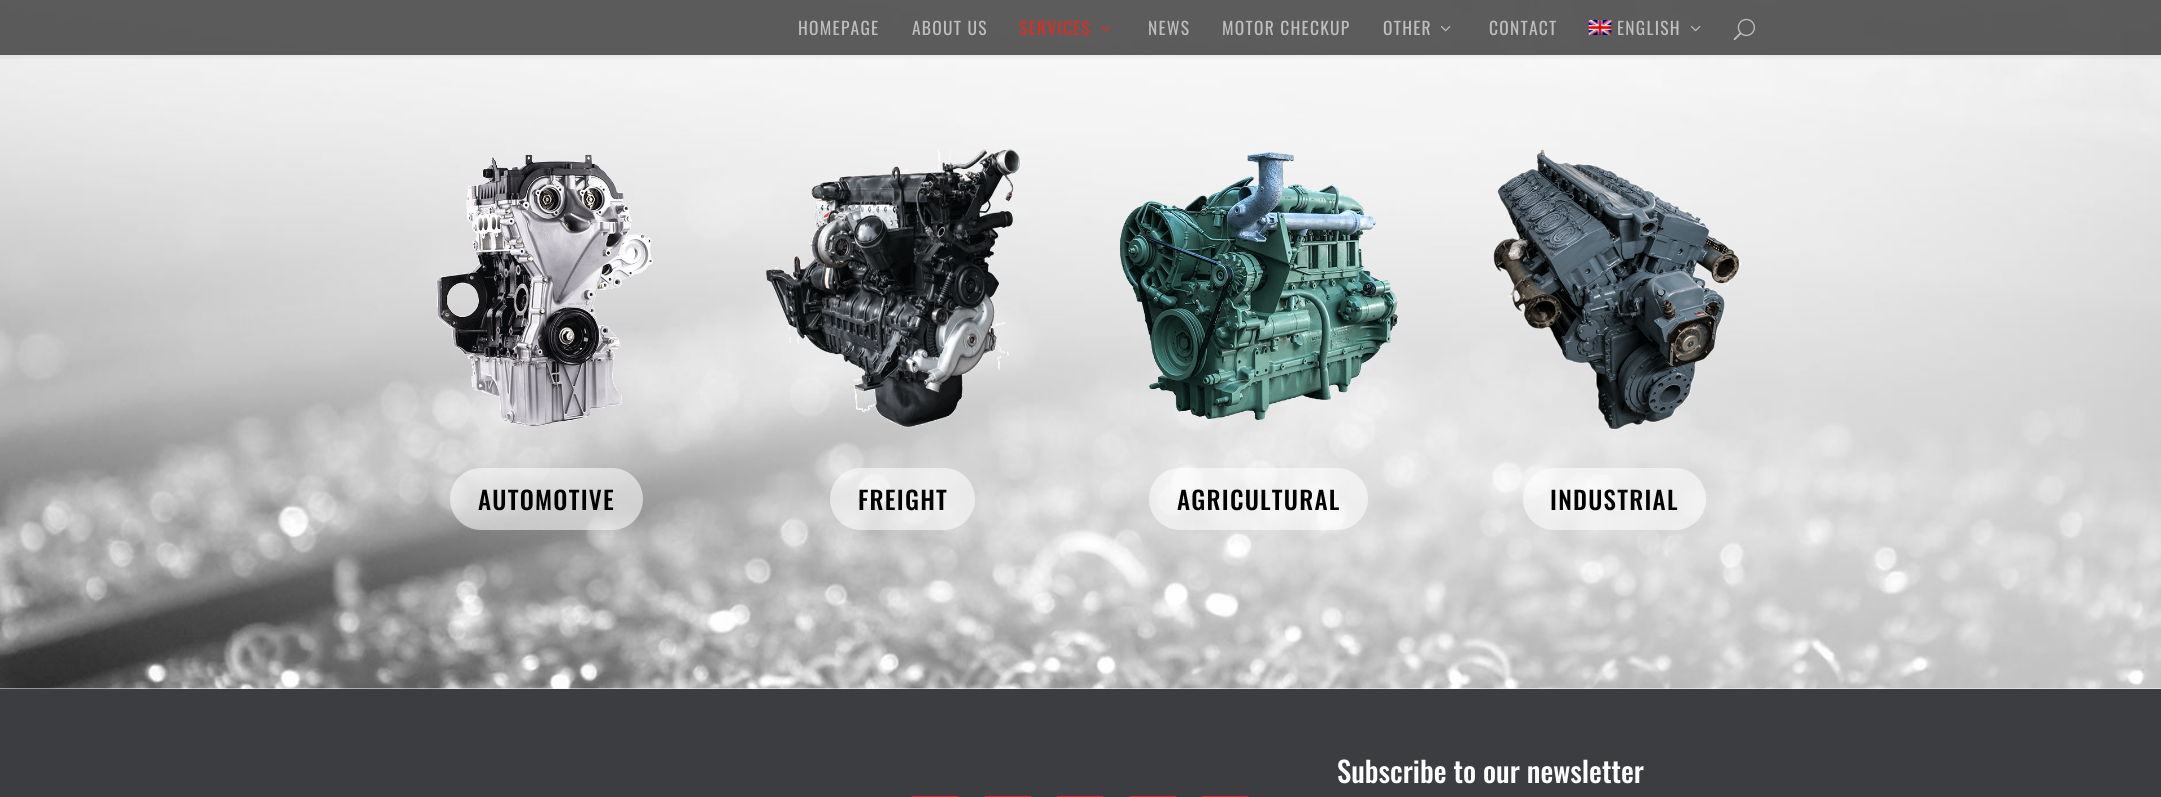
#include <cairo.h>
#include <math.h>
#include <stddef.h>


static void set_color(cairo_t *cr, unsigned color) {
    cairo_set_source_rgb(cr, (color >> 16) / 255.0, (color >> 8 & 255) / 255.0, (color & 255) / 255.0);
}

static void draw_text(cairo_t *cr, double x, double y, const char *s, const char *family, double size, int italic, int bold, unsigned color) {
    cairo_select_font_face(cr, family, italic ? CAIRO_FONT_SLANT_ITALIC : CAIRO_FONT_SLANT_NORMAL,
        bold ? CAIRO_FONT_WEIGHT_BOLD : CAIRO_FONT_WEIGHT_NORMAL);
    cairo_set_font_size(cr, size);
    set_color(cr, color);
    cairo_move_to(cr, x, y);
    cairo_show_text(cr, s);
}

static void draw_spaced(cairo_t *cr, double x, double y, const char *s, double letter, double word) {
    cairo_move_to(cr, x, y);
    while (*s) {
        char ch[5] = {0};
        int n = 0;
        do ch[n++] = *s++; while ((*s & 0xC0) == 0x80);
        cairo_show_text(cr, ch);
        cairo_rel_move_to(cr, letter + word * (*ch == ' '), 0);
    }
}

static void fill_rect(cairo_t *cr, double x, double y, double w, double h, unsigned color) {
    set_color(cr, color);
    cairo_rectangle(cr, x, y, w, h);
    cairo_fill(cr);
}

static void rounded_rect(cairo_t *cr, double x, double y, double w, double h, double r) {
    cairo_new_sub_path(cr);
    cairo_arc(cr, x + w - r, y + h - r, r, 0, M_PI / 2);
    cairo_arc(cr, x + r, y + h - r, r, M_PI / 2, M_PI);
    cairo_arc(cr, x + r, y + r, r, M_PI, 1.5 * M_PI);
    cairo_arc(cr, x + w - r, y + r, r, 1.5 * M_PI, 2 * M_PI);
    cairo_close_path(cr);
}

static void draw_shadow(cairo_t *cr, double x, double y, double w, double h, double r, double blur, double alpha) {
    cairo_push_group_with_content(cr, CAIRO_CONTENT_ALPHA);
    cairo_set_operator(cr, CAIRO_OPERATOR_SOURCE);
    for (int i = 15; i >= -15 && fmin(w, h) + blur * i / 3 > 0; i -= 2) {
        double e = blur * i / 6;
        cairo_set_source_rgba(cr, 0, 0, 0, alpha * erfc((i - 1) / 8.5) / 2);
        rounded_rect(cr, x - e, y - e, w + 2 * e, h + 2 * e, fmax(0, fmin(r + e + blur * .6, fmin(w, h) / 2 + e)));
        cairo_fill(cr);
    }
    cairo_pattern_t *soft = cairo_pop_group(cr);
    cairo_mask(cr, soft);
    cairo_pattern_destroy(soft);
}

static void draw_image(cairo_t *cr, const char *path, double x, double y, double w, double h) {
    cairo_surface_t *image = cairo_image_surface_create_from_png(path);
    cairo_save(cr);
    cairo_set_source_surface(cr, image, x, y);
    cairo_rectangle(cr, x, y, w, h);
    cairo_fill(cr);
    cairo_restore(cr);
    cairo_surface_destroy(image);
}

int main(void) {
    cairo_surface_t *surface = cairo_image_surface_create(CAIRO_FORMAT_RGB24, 2161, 797);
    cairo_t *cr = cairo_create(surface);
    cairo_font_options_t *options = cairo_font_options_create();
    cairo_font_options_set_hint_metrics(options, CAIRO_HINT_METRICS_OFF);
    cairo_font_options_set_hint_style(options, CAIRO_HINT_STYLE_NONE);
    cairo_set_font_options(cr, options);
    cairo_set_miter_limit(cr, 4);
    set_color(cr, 0xFFFFFF);
    cairo_paint(cr);
    draw_image(cr, "assets/img6.png", 0, 0, 2161, 689);
    cairo_save(cr);
    cairo_rectangle(cr, 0, 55, 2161, 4);
    cairo_clip(cr);
    set_color(cr, 0x000000);
    draw_shadow(cr, 0, 0, 2161, 55, 0, 4.5, 0.1);
    cairo_restore(cr);
    cairo_set_source_rgba(cr, 0.208, 0.208, 0.208, 0.8);
    cairo_rectangle(cr, 0, 0, 2161, 55);
    cairo_fill(cr);
    cairo_select_font_face(cr, "Oswald", CAIRO_FONT_SLANT_NORMAL, CAIRO_FONT_WEIGHT_NORMAL);
    cairo_set_font_size(cr, 17.5);
    set_color(cr, 0xBEBEBE);
    draw_spaced(cr, 798, 35, "HOMEPAGE", 1.25, 0);
    draw_spaced(cr, 912, 35, "ABOUT US", 1.25, 0);
    set_color(cr, 0xE02B20);
    draw_spaced(cr, 1019, 35, "SERVICES", 1.25, 0);
    draw_image(cr, "assets/img1.png", 1101, 26, 10, 6);
    set_color(cr, 0xBEBEBE);
    draw_spaced(cr, 1148, 35, "NEWS", 1.25, 0);
    draw_spaced(cr, 1222, 35, "MOTOR CHECKUP", 1.25, 0);
    draw_spaced(cr, 1383, 35, "OTHER", 1.25, 0);
    draw_image(cr, "assets/img2.png", 1441, 26, 10, 6);
    draw_spaced(cr, 1489, 35, "CONTACT", 1.25, 0);
    draw_image(cr, "assets/img3.png", 1588, 20, 24, 15);
    draw_spaced(cr, 1617, 35, "ENGLISH", 1.25, 0);
    draw_image(cr, "assets/img4.png", 1691, 26, 10, 6);
    draw_image(cr, "assets/img5.png", 1733, 18, 22, 23);
    draw_image(cr, "assets/img7.png", 436, 154, 217, 272);
    cairo_set_source_rgba(cr, 1, 1, 1, 0.55);
    rounded_rect(cr, 450, 468, 193, 62, 31);
    cairo_fill(cr);
    cairo_select_font_face(cr, "Oswald Medium", CAIRO_FONT_SLANT_NORMAL, CAIRO_FONT_WEIGHT_NORMAL);
    cairo_set_font_size(cr, 25);
    set_color(cr, 0x000000);
    draw_spaced(cr, 478, 510, "AUTOMOTIVE", 1.25, 0);
    draw_image(cr, "assets/img8.png", 766, 148, 255, 280);
    cairo_set_source_rgba(cr, 1, 1, 1, 0.55);
    rounded_rect(cr, 830, 468, 145, 62, 31);
    cairo_fill(cr);
    set_color(cr, 0x000000);
    draw_spaced(cr, 858, 510, "FREIGHT", 1.25, 0);
    draw_image(cr, "assets/img9.png", 1120, 152, 278, 268);
    cairo_set_source_rgba(cr, 1, 1, 1, 0.55);
    rounded_rect(cr, 1149, 468, 219, 62, 31);
    cairo_fill(cr);
    set_color(cr, 0x000000);
    draw_spaced(cr, 1177, 510, "AGRICULTURAL", 1.25, 0);
    draw_image(cr, "assets/img10.png", 1493, 149, 249, 281);
    cairo_set_source_rgba(cr, 1, 1, 1, 0.55);
    rounded_rect(cr, 1523, 468, 183, 62, 31);
    cairo_fill(cr);
    set_color(cr, 0x000000);
    draw_spaced(cr, 1550, 510, "INDUSTRIAL", 1.25, 0);
    fill_rect(cr, 0, 689, 2161, 108, 0x3C3D41);
    draw_text(cr, 1337, 783, "Subscribe to our newsletter", "Oswald Medium", 28.75, 0, 0, 0xFFFFFF);
    set_color(cr, 0xED1C24);
    rounded_rect(cr, 910, 796, 50, 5, 4);
    cairo_fill(cr);
    rounded_rect(cr, 983, 796, 50, 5, 4);
    cairo_fill(cr);
    rounded_rect(cr, 1055, 796, 50, 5, 4);
    cairo_fill(cr);
    rounded_rect(cr, 1128, 796, 50, 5, 4);
    cairo_fill(cr);
    rounded_rect(cr, 1200, 796, 50, 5, 4);
    cairo_fill(cr);
    cairo_surface_write_to_png(surface, "output.png");
    cairo_font_options_destroy(options);
    cairo_destroy(cr);
    cairo_surface_destroy(surface);
    return 0;
}
